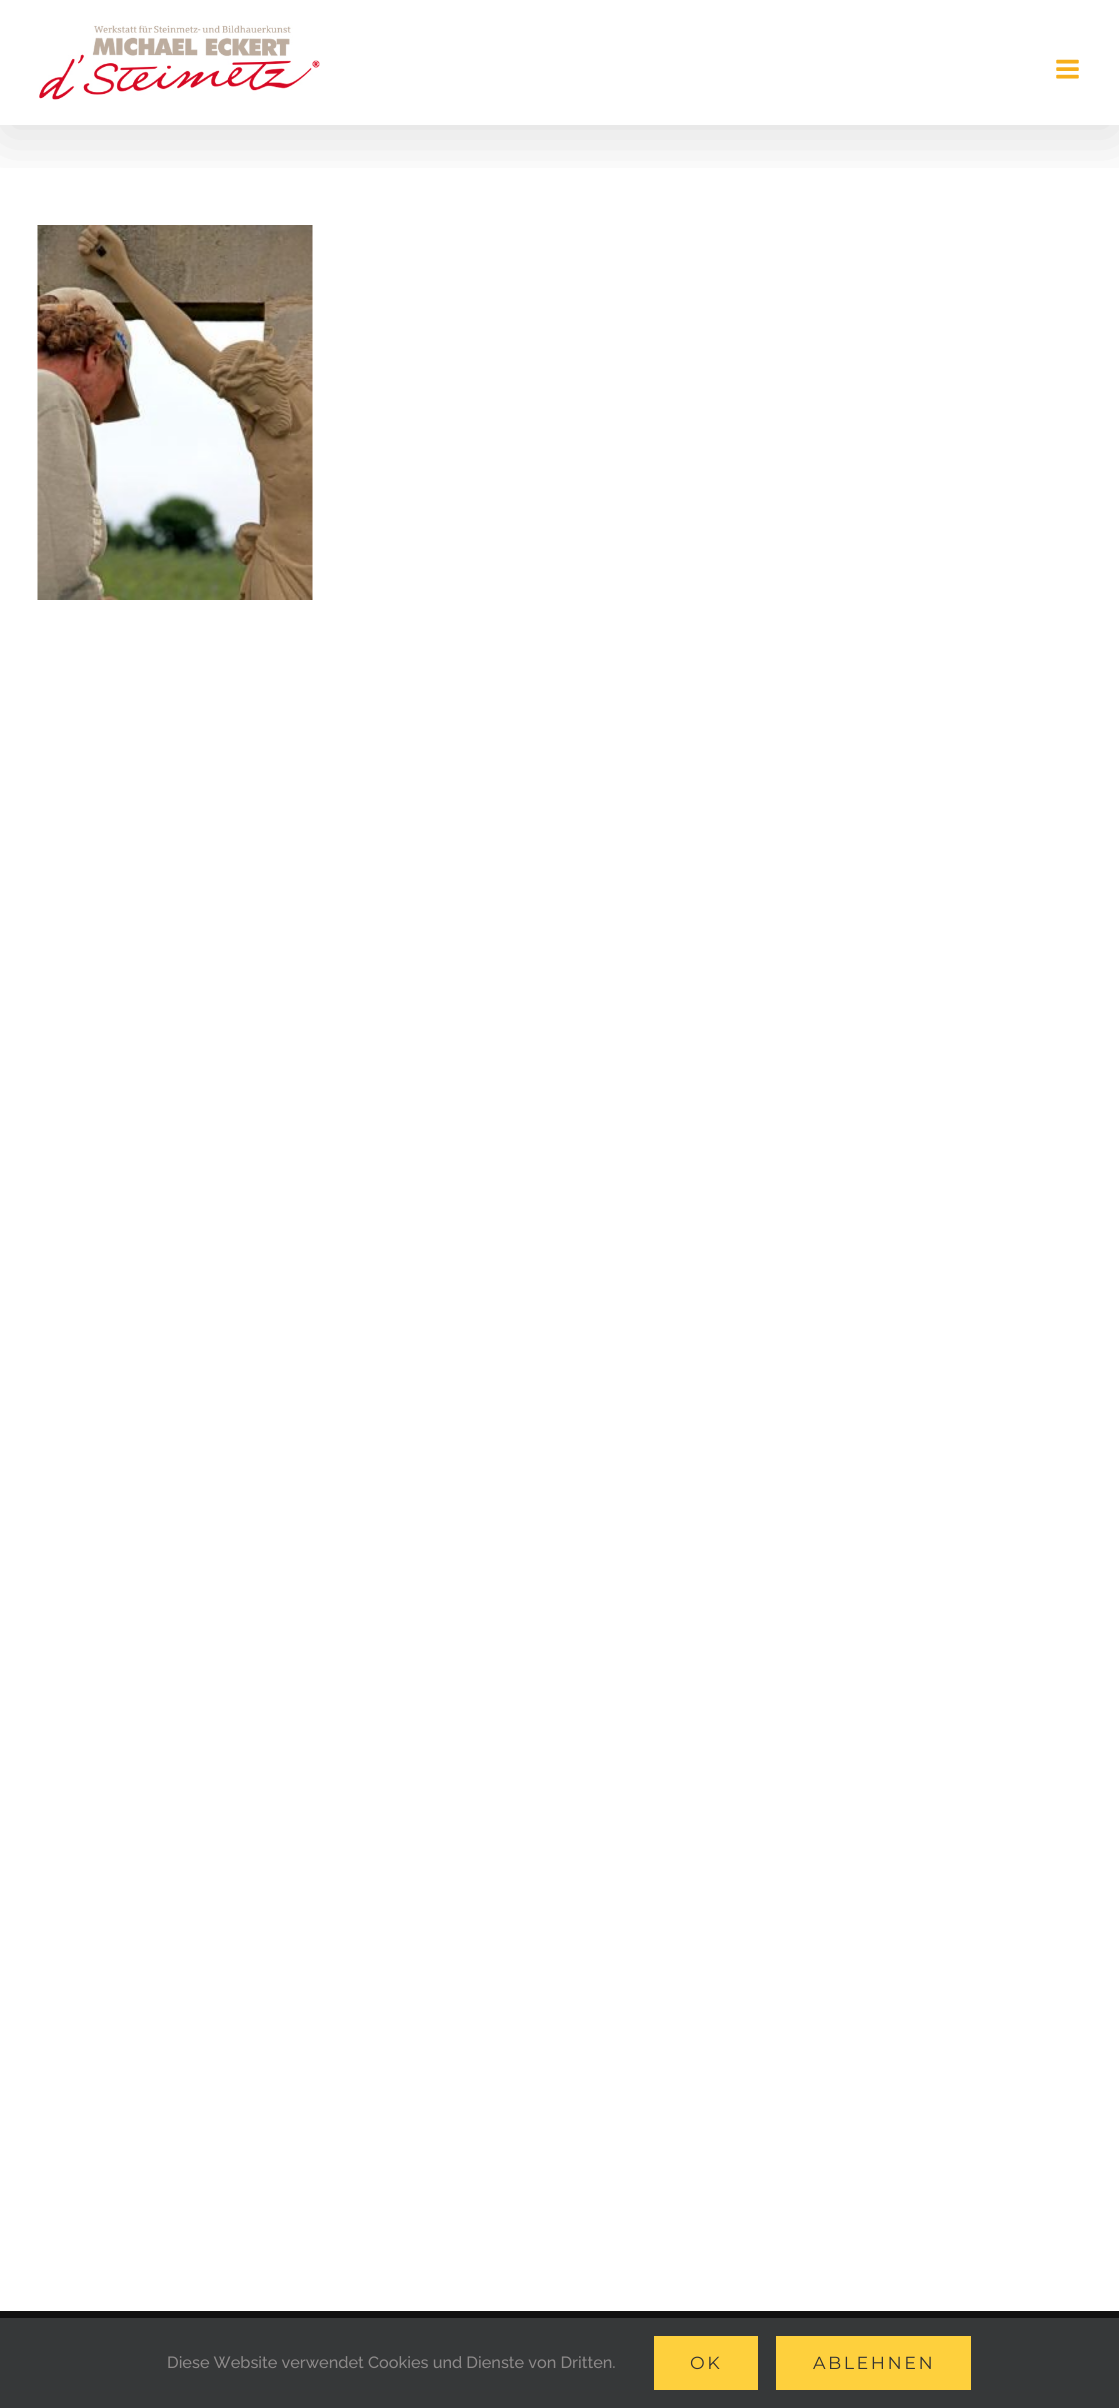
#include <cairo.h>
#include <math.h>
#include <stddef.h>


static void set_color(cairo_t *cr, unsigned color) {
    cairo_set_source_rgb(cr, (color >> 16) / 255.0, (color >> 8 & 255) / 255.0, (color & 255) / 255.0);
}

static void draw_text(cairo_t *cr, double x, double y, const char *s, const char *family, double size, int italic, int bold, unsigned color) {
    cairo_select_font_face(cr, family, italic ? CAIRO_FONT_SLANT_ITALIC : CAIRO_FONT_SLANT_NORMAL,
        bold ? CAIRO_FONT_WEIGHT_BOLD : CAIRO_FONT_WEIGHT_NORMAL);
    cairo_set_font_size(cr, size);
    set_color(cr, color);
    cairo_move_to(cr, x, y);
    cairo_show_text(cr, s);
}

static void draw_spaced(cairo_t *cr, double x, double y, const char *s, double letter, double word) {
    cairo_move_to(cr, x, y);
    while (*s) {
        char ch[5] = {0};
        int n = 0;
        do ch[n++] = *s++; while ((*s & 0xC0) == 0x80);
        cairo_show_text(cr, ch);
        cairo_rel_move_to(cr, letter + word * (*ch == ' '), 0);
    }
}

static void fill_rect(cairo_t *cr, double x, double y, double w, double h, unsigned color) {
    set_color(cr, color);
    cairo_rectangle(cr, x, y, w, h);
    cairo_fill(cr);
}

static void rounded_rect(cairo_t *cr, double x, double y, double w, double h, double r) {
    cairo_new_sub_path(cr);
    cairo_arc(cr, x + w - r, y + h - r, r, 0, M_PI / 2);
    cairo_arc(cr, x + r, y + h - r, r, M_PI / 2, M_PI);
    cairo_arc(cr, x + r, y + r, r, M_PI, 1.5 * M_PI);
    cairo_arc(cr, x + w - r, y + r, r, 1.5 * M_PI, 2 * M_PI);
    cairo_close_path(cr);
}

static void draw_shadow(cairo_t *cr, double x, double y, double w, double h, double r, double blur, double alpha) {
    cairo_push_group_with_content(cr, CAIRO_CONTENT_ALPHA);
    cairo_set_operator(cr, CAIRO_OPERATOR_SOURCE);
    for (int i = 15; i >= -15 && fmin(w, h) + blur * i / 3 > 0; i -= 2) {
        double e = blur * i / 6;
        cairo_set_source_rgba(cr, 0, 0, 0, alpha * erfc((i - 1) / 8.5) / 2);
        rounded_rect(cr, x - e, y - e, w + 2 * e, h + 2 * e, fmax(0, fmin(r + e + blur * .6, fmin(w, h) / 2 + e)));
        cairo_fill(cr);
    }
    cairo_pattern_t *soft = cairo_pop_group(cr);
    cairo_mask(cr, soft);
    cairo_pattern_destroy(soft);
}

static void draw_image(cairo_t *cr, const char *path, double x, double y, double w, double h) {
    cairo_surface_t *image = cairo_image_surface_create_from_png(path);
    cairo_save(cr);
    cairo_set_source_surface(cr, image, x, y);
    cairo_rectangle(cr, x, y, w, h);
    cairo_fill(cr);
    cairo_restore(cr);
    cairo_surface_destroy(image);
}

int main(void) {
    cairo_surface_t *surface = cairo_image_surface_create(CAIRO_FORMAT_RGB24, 1119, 2408);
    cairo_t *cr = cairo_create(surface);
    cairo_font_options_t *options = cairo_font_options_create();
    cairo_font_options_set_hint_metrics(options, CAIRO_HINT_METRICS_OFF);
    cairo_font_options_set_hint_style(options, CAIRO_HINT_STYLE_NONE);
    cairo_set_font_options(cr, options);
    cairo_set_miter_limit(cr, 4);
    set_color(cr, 0xFFFFFF);
    cairo_paint(cr);
    draw_image(cr, "assets/img3.png", 37, 225, 276, 375);
    cairo_save(cr);
    cairo_rectangle(cr, 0, 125, 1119, 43);
    cairo_clip(cr);
    set_color(cr, 0x000000);
    draw_shadow(cr, 3, 15, 1115, 120, 0, 31, 0.14);
    cairo_restore(cr);
    draw_image(cr, "assets/img1.png", 39, 25, 281, 75);
    draw_image(cr, "assets/img2.png", 1056, 59, 23, 20);
    fill_rect(cr, 0, 2311, 1119, 7, 0x111111);
    fill_rect(cr, 0, 2318, 1119, 90, 0x363839);
    draw_text(cr, 167, 2368, "Diese Website verwendet Cookies und Dienste von Dritten.", "Raleway Medium", 16.25, 0, 0, 0x8C8989);
    fill_rect(cr, 654, 2336, 104, 54, 0xFED03D);
    cairo_select_font_face(cr, "Montserrat", CAIRO_FONT_SLANT_NORMAL, CAIRO_FONT_WEIGHT_NORMAL);
    cairo_set_font_size(cr, 17.5);
    set_color(cr, 0x333333);
    draw_spaced(cr, 690, 2369, "OK", 2.5, 0);
    fill_rect(cr, 776, 2336, 195, 54, 0xFED03D);
    set_color(cr, 0x333333);
    draw_spaced(cr, 813, 2369, "ABLEHNEN", 2.5, 0);
    cairo_surface_write_to_png(surface, "output.png");
    cairo_font_options_destroy(options);
    cairo_destroy(cr);
    cairo_surface_destroy(surface);
    return 0;
}
